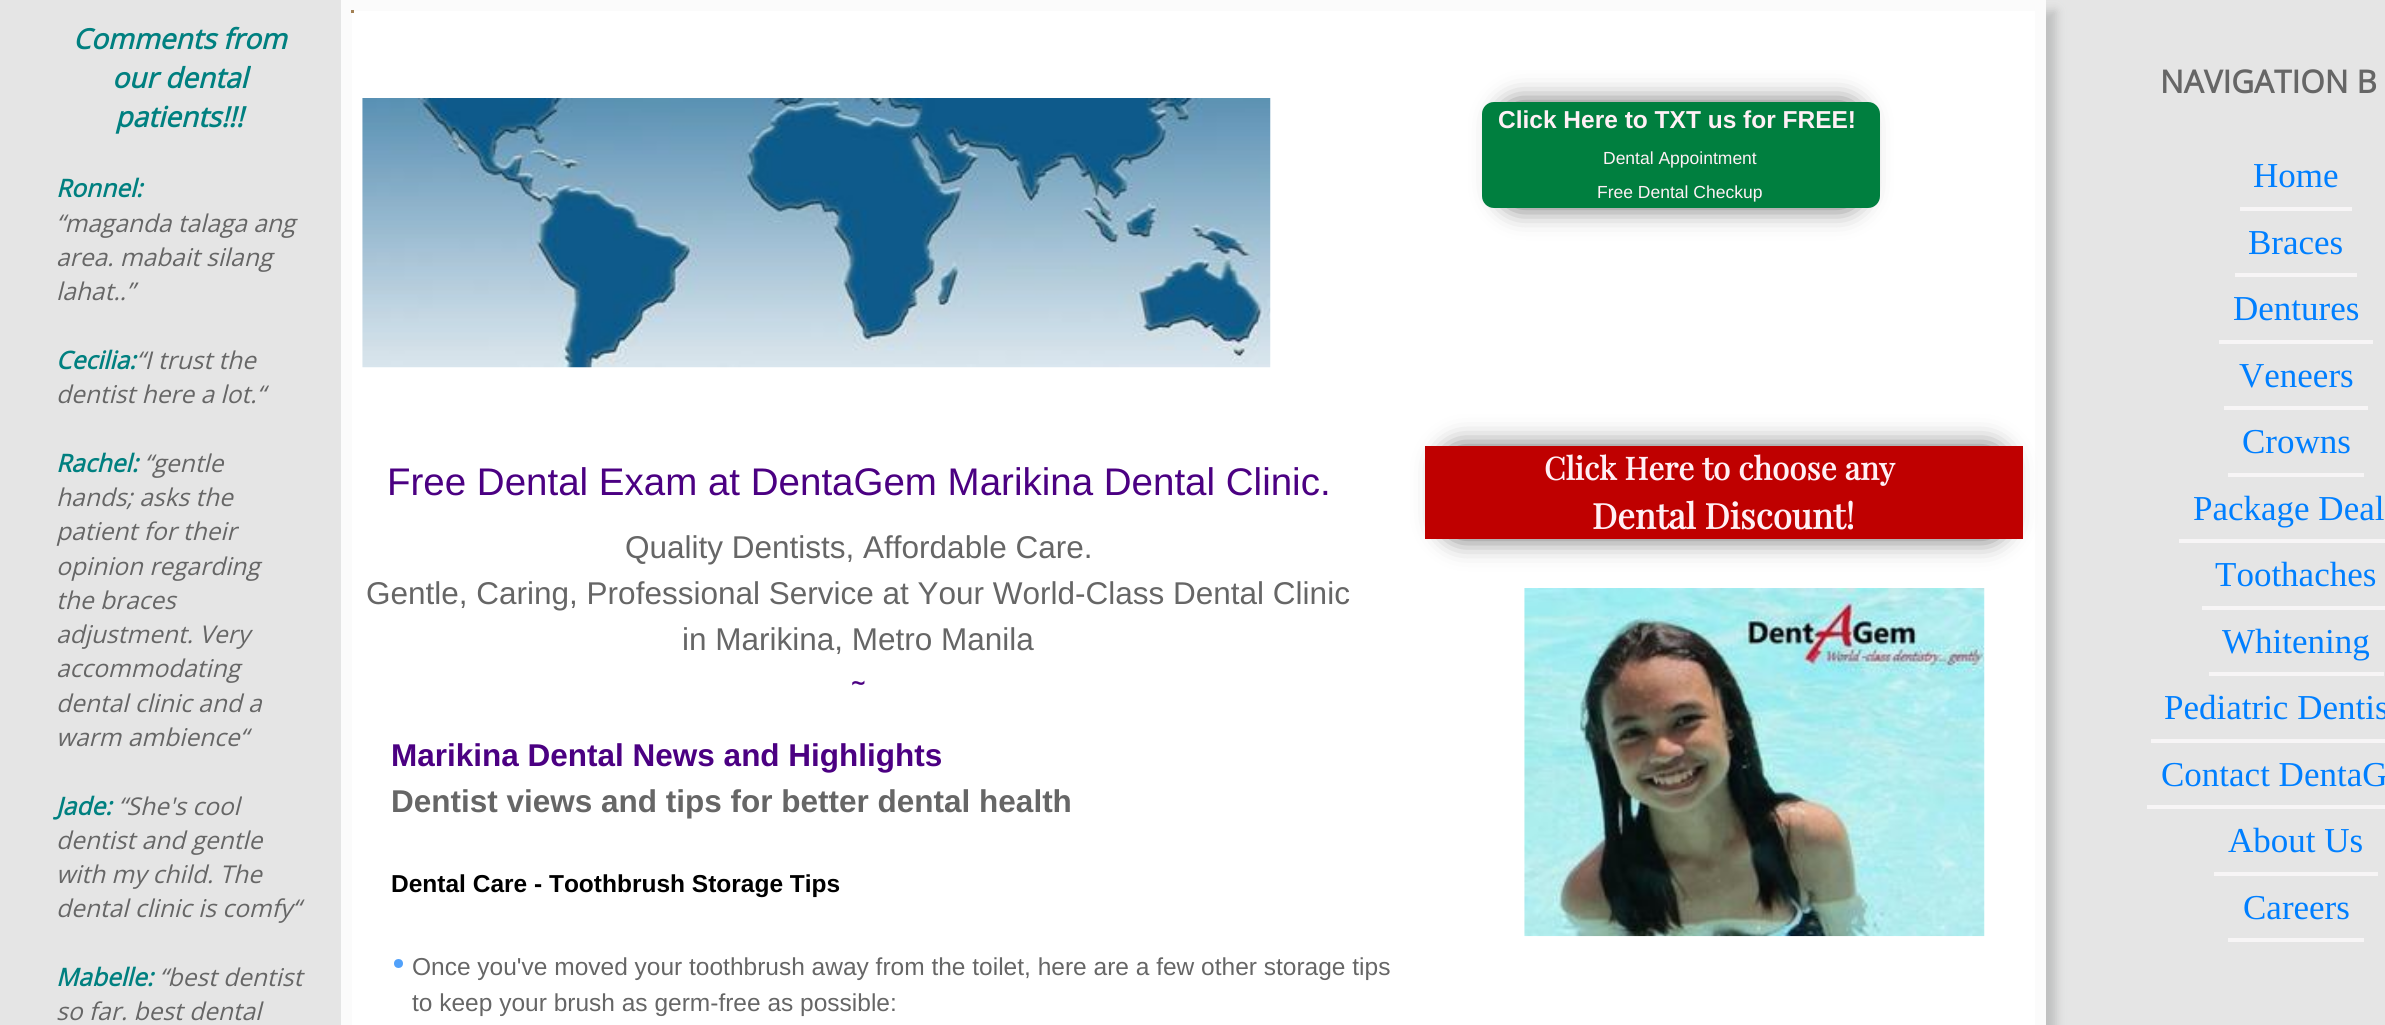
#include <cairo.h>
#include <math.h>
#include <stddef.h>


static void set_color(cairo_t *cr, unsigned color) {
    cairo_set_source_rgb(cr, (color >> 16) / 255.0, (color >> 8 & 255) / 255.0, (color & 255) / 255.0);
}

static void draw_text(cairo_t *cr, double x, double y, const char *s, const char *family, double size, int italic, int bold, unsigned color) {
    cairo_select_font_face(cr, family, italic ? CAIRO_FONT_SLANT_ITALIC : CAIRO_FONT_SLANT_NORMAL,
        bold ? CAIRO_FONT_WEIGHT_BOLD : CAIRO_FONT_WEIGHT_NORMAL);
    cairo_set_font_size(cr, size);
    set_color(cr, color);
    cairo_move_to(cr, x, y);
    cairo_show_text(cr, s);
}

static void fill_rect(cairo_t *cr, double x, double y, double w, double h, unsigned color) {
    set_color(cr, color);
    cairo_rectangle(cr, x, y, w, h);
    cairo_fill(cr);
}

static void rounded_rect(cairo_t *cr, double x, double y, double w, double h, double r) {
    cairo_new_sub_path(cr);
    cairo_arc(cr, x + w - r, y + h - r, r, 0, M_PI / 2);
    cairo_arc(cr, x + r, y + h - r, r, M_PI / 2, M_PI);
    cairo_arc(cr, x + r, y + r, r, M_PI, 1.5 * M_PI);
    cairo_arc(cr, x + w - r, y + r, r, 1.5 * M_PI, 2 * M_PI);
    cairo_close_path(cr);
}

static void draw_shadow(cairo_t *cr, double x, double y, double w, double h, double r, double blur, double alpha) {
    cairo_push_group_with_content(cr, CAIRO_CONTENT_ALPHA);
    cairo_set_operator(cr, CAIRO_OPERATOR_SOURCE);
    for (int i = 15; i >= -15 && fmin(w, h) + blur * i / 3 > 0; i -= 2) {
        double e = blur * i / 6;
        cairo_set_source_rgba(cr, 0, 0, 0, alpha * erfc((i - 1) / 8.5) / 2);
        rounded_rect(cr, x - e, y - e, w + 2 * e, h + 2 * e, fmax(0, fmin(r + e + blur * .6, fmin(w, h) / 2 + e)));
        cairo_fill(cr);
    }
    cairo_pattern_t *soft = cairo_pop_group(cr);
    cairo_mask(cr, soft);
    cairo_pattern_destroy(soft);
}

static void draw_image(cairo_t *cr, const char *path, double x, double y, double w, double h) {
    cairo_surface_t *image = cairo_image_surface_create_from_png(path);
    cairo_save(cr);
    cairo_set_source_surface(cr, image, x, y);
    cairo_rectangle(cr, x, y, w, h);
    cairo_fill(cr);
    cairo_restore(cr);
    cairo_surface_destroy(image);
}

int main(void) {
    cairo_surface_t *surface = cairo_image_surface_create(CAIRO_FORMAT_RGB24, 2385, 1025);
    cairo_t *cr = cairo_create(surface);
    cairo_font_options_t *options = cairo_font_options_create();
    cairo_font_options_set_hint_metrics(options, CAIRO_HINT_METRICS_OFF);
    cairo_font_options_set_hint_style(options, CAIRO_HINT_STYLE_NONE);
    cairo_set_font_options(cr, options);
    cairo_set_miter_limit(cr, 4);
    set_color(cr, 0xE5E5E5);
    cairo_paint(cr);
    set_color(cr, 0xBFC0C0);
    draw_shadow(cr, 352, 11, 1704, 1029, 0, 5, 1);
    set_color(cr, 0xFFFFFF);
    cairo_rectangle(cr, 346.5, 5.5, 1694, 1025);
    cairo_fill_preserve(cr);
    set_color(cr, 0xFBFBFB);
    cairo_set_line_width(cr, 11);
    cairo_stroke(cr);
    fill_rect(cr, 351, 10, 3, 3, 0xA38154);
    draw_text(cr, 73, 49, "Comments from", "Open Sans", 28, 1, 1, 0x008080);
    draw_text(cr, 112, 88, "our dental", "Open Sans", 28, 1, 1, 0x008080);
    draw_text(cr, 115, 127, "patients!!!", "Open Sans", 28, 1, 1, 0x008080);
    draw_text(cr, 56, 197, "Ronnel:", "Open Sans", 24.5, 1, 1, 0x008080);
    draw_text(cr, 56, 232, "“maganda talaga ang", "Open Sans", 24.5, 1, 0, 0x666666);
    draw_text(cr, 56, 266, "area. mabait silang", "Open Sans", 24.5, 1, 0, 0x666666);
    draw_text(cr, 56, 300, "lahat..”", "Open Sans", 24.5, 1, 0, 0x666666);
    draw_text(cr, 56, 369, "Cecilia:", "Open Sans", 24.5, 1, 1, 0x008080);
    draw_text(cr, 136, 369, "“I trust the", "Open Sans", 24.5, 1, 0, 0x666666);
    draw_text(cr, 56, 403, "dentist here a lot.“", "Open Sans", 24.5, 1, 0, 0x666666);
    draw_text(cr, 56, 472, "Rachel:", "Open Sans", 24.5, 1, 1, 0x008080);
    draw_text(cr, 144, 472, "“gentle", "Open Sans", 24.5, 1, 0, 0x666666);
    draw_text(cr, 56, 506, "hands; asks the", "Open Sans", 24.5, 1, 0, 0x666666);
    draw_text(cr, 56, 540, "patient for their", "Open Sans", 24.5, 1, 0, 0x666666);
    draw_text(cr, 56, 575, "opinion regarding", "Open Sans", 24.5, 1, 0, 0x666666);
    draw_text(cr, 56, 609, "the braces", "Open Sans", 24.5, 1, 0, 0x666666);
    draw_text(cr, 56, 643, "adjustment. Very", "Open Sans", 24.5, 1, 0, 0x666666);
    draw_text(cr, 56, 677, "accommodating", "Open Sans", 24.5, 1, 0, 0x666666);
    draw_text(cr, 56, 712, "dental clinic and a", "Open Sans", 24.5, 1, 0, 0x666666);
    draw_text(cr, 56, 746, "warm ambience“", "Open Sans", 24.5, 1, 0, 0x666666);
    draw_text(cr, 56, 815, "Jade:", "Open Sans", 24.5, 1, 1, 0x008080);
    draw_text(cr, 118, 815, "“She's cool", "Open Sans", 24.5, 1, 0, 0x666666);
    draw_text(cr, 56, 849, "dentist and gentle", "Open Sans", 24.5, 1, 0, 0x666666);
    draw_text(cr, 56, 883, "with my child. The", "Open Sans", 24.5, 1, 0, 0x666666);
    draw_text(cr, 56, 917, "dental clinic is comfy“", "Open Sans", 24.5, 1, 0, 0x666666);
    draw_text(cr, 56, 986, "Mabelle:", "Open Sans", 24.5, 1, 1, 0x008080);
    draw_text(cr, 159, 986, "“best dentist", "Open Sans", 24.5, 1, 0, 0x666666);
    draw_text(cr, 56, 1020, "so far. best dental", "Open Sans", 24.5, 1, 0, 0x666666);
    draw_text(cr, 2160, 93, "NAVIGATION B", "Open Sans", 31.5, 0, 1, 0x666666);
    draw_image(cr, "assets/img1.png", 362, 98, 909, 270);
    set_color(cr, 0x000000);
    draw_shadow(cr, 1500, 102, 362, 106, 18, 13, 0.6);
    set_color(cr, 0x007F3F);
    rounded_rect(cr, 1482, 102, 398, 106, 12);
    cairo_fill(cr);
    draw_text(cr, 1498, 128, "Click Here to TXT us for FREE!", "Liberation Sans", 24.5, 0, 1, 0xFFF0F5);
    draw_text(cr, 1603, 164, "Dental Appointment", "Liberation Sans", 17.5, 0, 0, 0xFFF0F5);
    draw_text(cr, 1597, 198, "Free Dental Checkup", "Liberation Sans", 17.5, 0, 0, 0xFFF0F5);
    fill_rect(cr, 2240, 207, 112, 4, 0xF7F5F6);
    draw_text(cr, 2253, 187, "Home", "Liberation Serif", 35, 0, 0, 0x007FFF);
    fill_rect(cr, 2235, 273, 122, 4, 0xF7F5F6);
    draw_text(cr, 2248, 254, "Braces", "Liberation Serif", 35, 0, 0, 0x007FFF);
    fill_rect(cr, 2219, 340, 154, 4, 0xF7F5F6);
    draw_text(cr, 2233, 320, "Dentures", "Liberation Serif", 35, 0, 0, 0x007FFF);
    fill_rect(cr, 2224, 406, 144, 4, 0xF7F5F6);
    draw_text(cr, 2239, 387, "Veneers", "Liberation Serif", 35, 0, 0, 0x007FFF);
    fill_rect(cr, 2228, 473, 136, 4, 0xF7F5F6);
    draw_text(cr, 2242, 453, "Crowns", "Liberation Serif", 35, 0, 0, 0x007FFF);
    fill_rect(cr, 2179, 539, 206, 4, 0xF7F5F6);
    draw_text(cr, 2193, 520, "Package Deal", "Liberation Serif", 35, 0, 0, 0x007FFF);
    fill_rect(cr, 2202, 606, 183, 4, 0xF7F5F6);
    draw_text(cr, 2215, 586, "Toothaches", "Liberation Serif", 35, 0, 0, 0x007FFF);
    fill_rect(cr, 2209, 672, 175, 4, 0xF7F5F6);
    draw_text(cr, 2222, 653, "Whitening", "Liberation Serif", 35, 0, 0, 0x007FFF);
    fill_rect(cr, 2151, 739, 234, 4, 0xF7F5F6);
    draw_text(cr, 2164, 719, "Pediatric Dentis", "Liberation Serif", 35, 0, 0, 0x007FFF);
    fill_rect(cr, 2147, 805, 238, 4, 0xF7F5F6);
    draw_text(cr, 2161, 786, "Contact DentaG", "Liberation Serif", 35, 0, 0, 0x007FFF);
    fill_rect(cr, 2214, 872, 164, 4, 0xF7F5F6);
    draw_text(cr, 2228, 852, "About Us", "Liberation Serif", 35, 0, 0, 0x007FFF);
    fill_rect(cr, 2228, 938, 136, 4, 0xF7F5F6);
    draw_text(cr, 2243, 919, "Careers", "Liberation Serif", 35, 0, 0, 0x007FFF);
    draw_text(cr, 387, 495, "Free Dental Exam at DentaGem Marikina Dental Clinic.", "Liberation Sans", 38.5, 0, 0, 0x4B0082);
    draw_text(cr, 625, 558, "Quality Dentists, Affordable Care.", "Liberation Sans", 31.5, 0, 0, 0x666666);
    draw_text(cr, 366, 604, "Gentle, Caring, Professional Service at Your World-Class Dental Clinic", "Liberation Sans", 31.5, 0, 0, 0x666666);
    draw_text(cr, 682, 650, "in Marikina, Metro Manila", "Liberation Sans", 31.5, 0, 0, 0x666666);
    draw_text(cr, 851, 692, "~", "Open Sans", 24.5, 0, 1, 0x4B0082);
    set_color(cr, 0x000000);
    draw_shadow(cr, 1442, 446, 564, 93, 18, 13, 0.6);
    fill_rect(cr, 1425, 446, 598, 93, 0xBF0000);
    draw_text(cr, 1544, 480, "Click Here to choose any", "Playfair Display", 31.5, 0, 1, 0xFFF0F5);
    draw_text(cr, 1592, 529, "Dental Discount!", "Playfair Display", 35, 0, 1, 0xFFF0F5);
    draw_text(cr, 391, 766, "Marikina Dental News and Highlights", "Liberation Sans", 31.5, 0, 1, 0x4B0082);
    draw_text(cr, 391, 812, "Dentist views and tips for better dental health", "Liberation Sans", 31.5, 0, 1, 0x666666);
    draw_text(cr, 391, 892, "Dental Care - Toothbrush Storage Tips", "Liberation Sans", 24.5, 0, 1, 0x000000);
    set_color(cr, 0x51A1FA);
    cairo_new_path(cr);
    cairo_arc(cr, 398.5, 963.5, 4.5, 0, 2 * M_PI);
    cairo_fill(cr);
    draw_text(cr, 412, 975, "Once you've moved your toothbrush away from the toilet, here are a few other storage tips", "Liberation Sans", 24.5, 0, 0, 0x666666);
    draw_text(cr, 412, 1011, "to keep your brush as germ-free as possible:", "Liberation Sans", 24.5, 0, 0, 0x666666);
    draw_image(cr, "assets/img2.png", 1524, 588, 461, 349);
    cairo_surface_write_to_png(surface, "output.png");
    cairo_font_options_destroy(options);
    cairo_destroy(cr);
    cairo_surface_destroy(surface);
    return 0;
}
